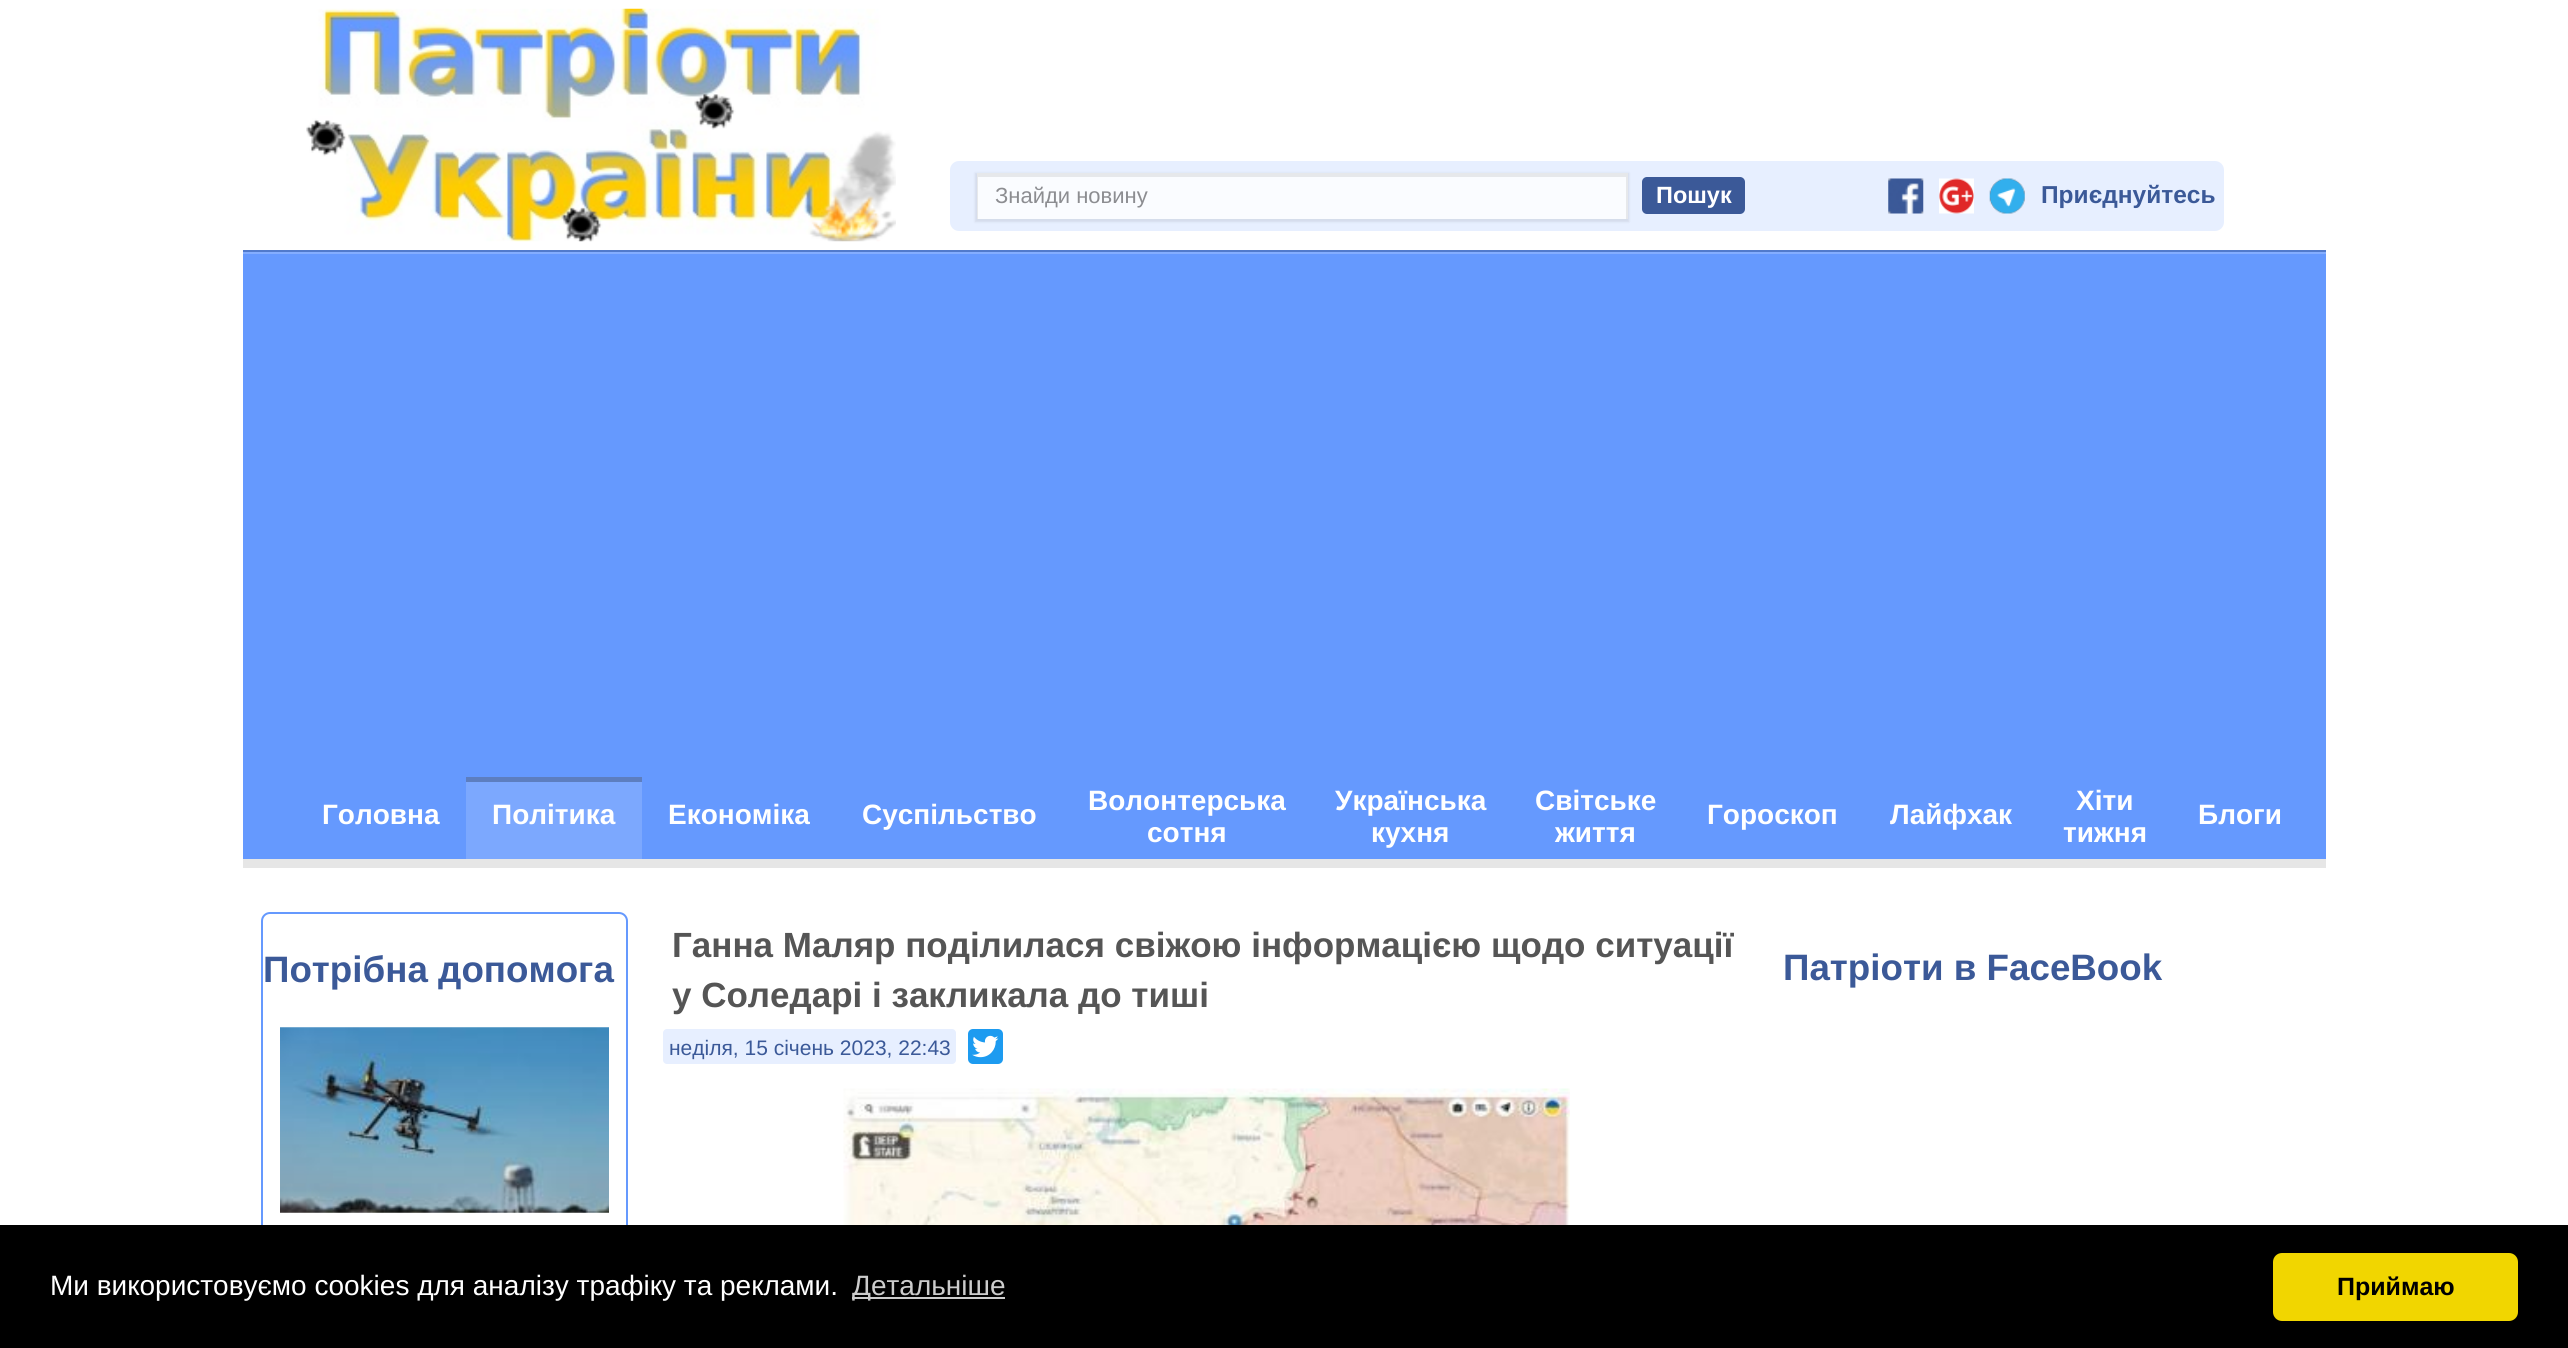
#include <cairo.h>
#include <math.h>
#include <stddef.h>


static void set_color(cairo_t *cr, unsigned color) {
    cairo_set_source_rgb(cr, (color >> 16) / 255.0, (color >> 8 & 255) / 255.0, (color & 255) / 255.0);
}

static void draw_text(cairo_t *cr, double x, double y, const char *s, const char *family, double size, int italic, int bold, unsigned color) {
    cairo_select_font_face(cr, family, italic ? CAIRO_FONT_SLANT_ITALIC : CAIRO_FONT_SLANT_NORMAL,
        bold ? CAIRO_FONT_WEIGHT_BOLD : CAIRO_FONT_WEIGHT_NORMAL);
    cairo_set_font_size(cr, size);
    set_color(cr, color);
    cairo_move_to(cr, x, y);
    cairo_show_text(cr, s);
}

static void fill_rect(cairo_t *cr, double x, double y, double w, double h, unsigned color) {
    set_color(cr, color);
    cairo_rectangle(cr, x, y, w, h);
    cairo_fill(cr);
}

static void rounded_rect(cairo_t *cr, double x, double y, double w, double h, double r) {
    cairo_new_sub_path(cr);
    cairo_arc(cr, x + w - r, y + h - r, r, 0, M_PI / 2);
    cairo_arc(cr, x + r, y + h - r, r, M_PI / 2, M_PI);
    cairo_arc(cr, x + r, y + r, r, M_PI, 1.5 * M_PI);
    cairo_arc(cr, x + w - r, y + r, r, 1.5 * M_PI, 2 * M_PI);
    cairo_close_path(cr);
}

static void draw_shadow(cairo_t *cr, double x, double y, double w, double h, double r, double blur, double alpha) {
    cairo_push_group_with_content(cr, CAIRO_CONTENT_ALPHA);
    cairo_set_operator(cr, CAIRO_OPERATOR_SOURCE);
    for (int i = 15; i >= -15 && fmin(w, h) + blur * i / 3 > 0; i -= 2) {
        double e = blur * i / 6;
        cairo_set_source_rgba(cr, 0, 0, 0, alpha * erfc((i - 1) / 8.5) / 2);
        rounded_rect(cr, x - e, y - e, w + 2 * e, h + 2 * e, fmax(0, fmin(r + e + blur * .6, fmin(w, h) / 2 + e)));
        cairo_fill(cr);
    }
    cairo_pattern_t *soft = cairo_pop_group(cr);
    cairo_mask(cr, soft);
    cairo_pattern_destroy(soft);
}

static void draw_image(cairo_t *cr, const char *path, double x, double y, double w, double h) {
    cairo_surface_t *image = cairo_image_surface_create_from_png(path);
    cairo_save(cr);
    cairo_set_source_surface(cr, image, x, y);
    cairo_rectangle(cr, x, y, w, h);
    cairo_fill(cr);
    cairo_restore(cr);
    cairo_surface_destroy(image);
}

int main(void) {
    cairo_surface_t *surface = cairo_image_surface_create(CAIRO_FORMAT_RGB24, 2568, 1348);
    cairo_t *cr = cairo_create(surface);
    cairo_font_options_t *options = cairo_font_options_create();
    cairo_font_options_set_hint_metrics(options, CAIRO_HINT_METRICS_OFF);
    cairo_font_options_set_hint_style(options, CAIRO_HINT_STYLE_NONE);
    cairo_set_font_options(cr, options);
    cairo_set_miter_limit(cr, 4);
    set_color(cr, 0xFFFFFF);
    cairo_paint(cr);
    draw_image(cr, "assets/img1.png", 306, 8, 590, 234);
    set_color(cr, 0xE7EFFF);
    rounded_rect(cr, 950, 161, 1274, 70, 9);
    cairo_fill(cr);
    set_color(cr, 0x2E3033);
    draw_shadow(cr, 975, 173, 654, 49, 0, 1, 0.1);
    fill_rect(cr, 978, 177, 648, 42, 0xFAFCFF);
    cairo_save(cr);
    cairo_rectangle(cr, 977, 173, 651, 46);
    cairo_clip(cr);
    set_color(cr, 0xE6E8EB);
    cairo_set_fill_rule(cr, CAIRO_FILL_RULE_EVEN_ODD);
    cairo_new_path(cr);
    cairo_move_to(cr, 803, 0);
    cairo_line_to(cr, 1801, 0);
    cairo_line_to(cr, 1801, 392);
    cairo_line_to(cr, 803, 392);
    cairo_close_path(cr);
    cairo_move_to(cr, 978, 177);
    cairo_line_to(cr, 1626, 177);
    cairo_line_to(cr, 1626, 219);
    cairo_line_to(cr, 978, 219);
    cairo_close_path(cr);
    cairo_fill(cr);
    cairo_restore(cr);
    draw_text(cr, 995, 203, "Знайди новину", "Liberation Sans", 22, 0, 0, 0x8C8D91);
    set_color(cr, 0x3B5998);
    rounded_rect(cr, 1642, 177, 103, 37, 5);
    cairo_fill(cr);
    draw_text(cr, 1656, 203, "Пошук", "Liberation Sans", 23.5, 0, 1, 0xFFFFFF);
    draw_image(cr, "assets/img2.png", 1888, 178, 36, 36);
    draw_image(cr, "assets/img3.png", 1939, 178, 35, 36);
    draw_image(cr, "assets/img4.png", 1989, 178, 36, 36);
    draw_text(cr, 2041, 203, "Приєднуйтесь", "Liberation Sans", 24.5, 0, 1, 0x3B5998);
    set_color(cr, 0xE6E6E6);
    cairo_new_path(cr);
    cairo_move_to(cr, 243, 259);
    cairo_line_to(cr, 243, 868);
    cairo_line_to(cr, 2326, 868);
    cairo_line_to(cr, 2326, 259);
    cairo_line_to(cr, 2326, 859);
    cairo_line_to(cr, 243, 859);
    cairo_close_path(cr);
    cairo_fill(cr);
    fill_rect(cr, 243, 254, 2083, 605, 0x6599FE);
    fill_rect(cr, 243, 252, 2083, 2, 0x84ADFE);
    fill_rect(cr, 243, 250, 2083, 2, 0x517ACB);
    draw_text(cr, 322, 824, "Головна", "Liberation Sans", 28, 0, 1, 0xFFFFFF);
    fill_rect(cr, 466, 782, 176, 77, 0x7CA8FE);
    fill_rect(cr, 466, 777, 176, 5, 0x5D7EBF);
    draw_text(cr, 492, 824, "Політика", "Liberation Sans", 28, 0, 1, 0xFFFFFF);
    draw_text(cr, 668, 824, "Економіка", "Liberation Sans", 28, 0, 1, 0xFFFFFF);
    draw_text(cr, 862, 824, "Суспільство", "Liberation Sans", 28, 0, 1, 0xFFFFFF);
    draw_text(cr, 1088, 810, "Волонтерська", "Liberation Sans", 28, 0, 1, 0xFFFFFF);
    draw_text(cr, 1147, 842, "сотня", "Liberation Sans", 28, 0, 1, 0xFFFFFF);
    draw_text(cr, 1335, 810, "Українська", "Liberation Sans", 28, 0, 1, 0xFFFFFF);
    draw_text(cr, 1371, 842, "кухня", "Liberation Sans", 28, 0, 1, 0xFFFFFF);
    draw_text(cr, 1535, 810, "Світське", "Liberation Sans", 28, 0, 1, 0xFFFFFF);
    draw_text(cr, 1555, 842, "життя", "Liberation Sans", 28, 0, 1, 0xFFFFFF);
    draw_text(cr, 1707, 824, "Гороскоп", "Liberation Sans", 28, 0, 1, 0xFFFFFF);
    draw_text(cr, 1890, 824, "Лайфхак", "Liberation Sans", 28, 0, 1, 0xFFFFFF);
    draw_text(cr, 2076, 810, "Хіти", "Liberation Sans", 28, 0, 1, 0xFFFFFF);
    draw_text(cr, 2063, 842, "тижня", "Liberation Sans", 28, 0, 1, 0xFFFFFF);
    draw_text(cr, 2198, 824, "Блоги", "Liberation Sans", 28, 0, 1, 0xFFFFFF);
    rounded_rect(cr, 262, 913, 365, 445, 8);
    set_color(cr, 0x6599FE);
    cairo_stroke(cr);
    draw_text(cr, 263, 982, "Потрібна допомога", "Liberation Sans", 36.75, 0, 1, 0x3B5998);
    draw_image(cr, "assets/img5.png", 280, 1027, 329, 186);
    draw_text(cr, 672, 957, "Ганна Маляр поділилася свіжою інформацією щодо ситуації", "Liberation Sans", 35, 0, 1, 0x555555);
    draw_text(cr, 672, 1007, "у Соледарі і закликала до тиші", "Liberation Sans", 35, 0, 1, 0x555555);
    set_color(cr, 0xE7EFFF);
    rounded_rect(cr, 663, 1029, 293, 35, 4);
    cairo_fill(cr);
    draw_text(cr, 669, 1055, "неділя, 15 січень 2023, 22:43", "Liberation Sans", 21, 0, 0, 0x3B5998);
    set_color(cr, 0x1D9BF0);
    rounded_rect(cr, 968, 1029, 35, 35, 5);
    cairo_fill(cr);
    draw_image(cr, "assets/img6.png", 972, 1035, 27, 23);
    draw_image(cr, "assets/img7.png", 843, 1088, 727, 137);
    draw_text(cr, 1783, 980, "Патріоти в FaceBook", "Liberation Sans", 36.75, 0, 1, 0x3B5998);
    fill_rect(cr, 0, 1225, 2568, 123, 0x000000);
    draw_text(cr, 50, 1295, "Ми використовуємо cookies для аналізу трафіку та реклами.", "Liberation Sans", 28, 0, 0, 0xFFFFFF);
    fill_rect(cr, 852, 1297, 153, 2, 0xCCCCCC);
    draw_text(cr, 852, 1295, "Детальніше", "Liberation Sans", 28, 0, 0, 0xCCCCCC);
    set_color(cr, 0xF1D600);
    rounded_rect(cr, 2273, 1253, 245, 68, 9);
    cairo_fill(cr);
    draw_text(cr, 2337, 1295, "Приймаю", "Liberation Sans", 25, 0, 1, 0x000000);
    cairo_surface_write_to_png(surface, "output.png");
    cairo_font_options_destroy(options);
    cairo_destroy(cr);
    cairo_surface_destroy(surface);
    return 0;
}
